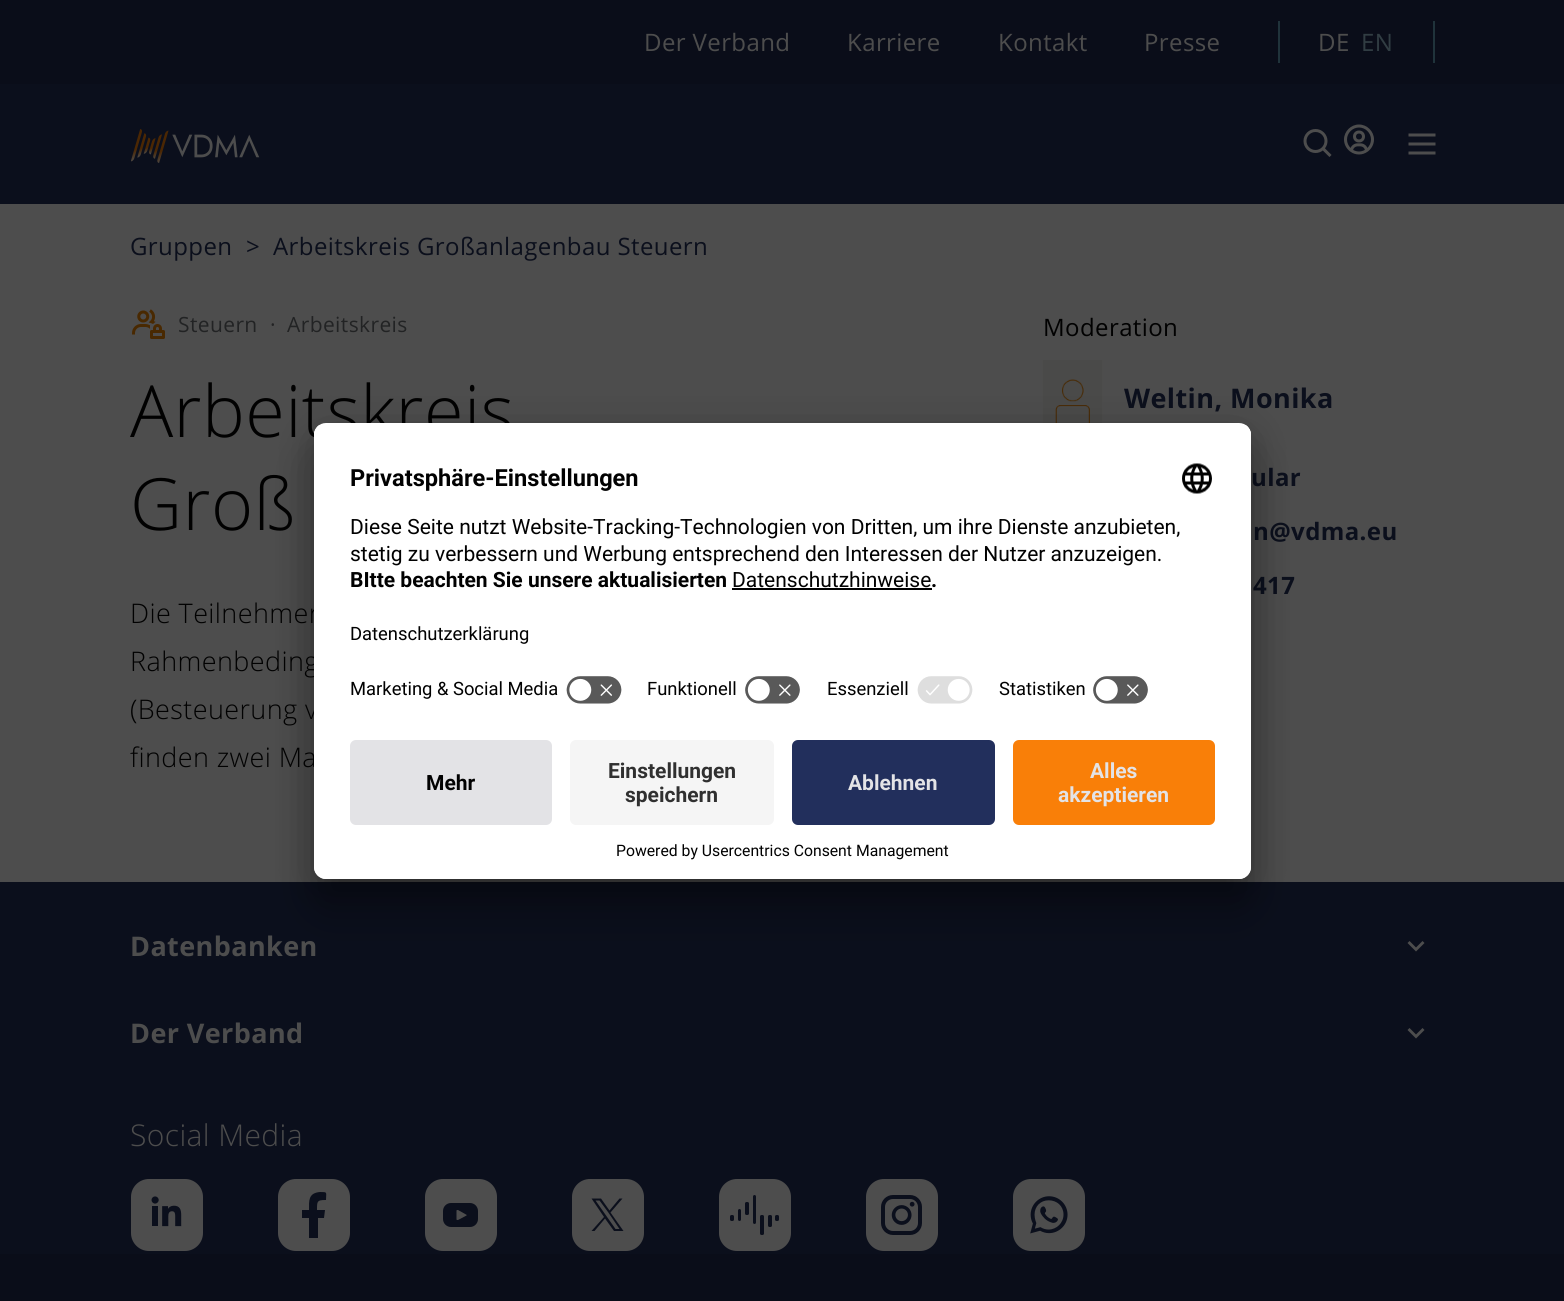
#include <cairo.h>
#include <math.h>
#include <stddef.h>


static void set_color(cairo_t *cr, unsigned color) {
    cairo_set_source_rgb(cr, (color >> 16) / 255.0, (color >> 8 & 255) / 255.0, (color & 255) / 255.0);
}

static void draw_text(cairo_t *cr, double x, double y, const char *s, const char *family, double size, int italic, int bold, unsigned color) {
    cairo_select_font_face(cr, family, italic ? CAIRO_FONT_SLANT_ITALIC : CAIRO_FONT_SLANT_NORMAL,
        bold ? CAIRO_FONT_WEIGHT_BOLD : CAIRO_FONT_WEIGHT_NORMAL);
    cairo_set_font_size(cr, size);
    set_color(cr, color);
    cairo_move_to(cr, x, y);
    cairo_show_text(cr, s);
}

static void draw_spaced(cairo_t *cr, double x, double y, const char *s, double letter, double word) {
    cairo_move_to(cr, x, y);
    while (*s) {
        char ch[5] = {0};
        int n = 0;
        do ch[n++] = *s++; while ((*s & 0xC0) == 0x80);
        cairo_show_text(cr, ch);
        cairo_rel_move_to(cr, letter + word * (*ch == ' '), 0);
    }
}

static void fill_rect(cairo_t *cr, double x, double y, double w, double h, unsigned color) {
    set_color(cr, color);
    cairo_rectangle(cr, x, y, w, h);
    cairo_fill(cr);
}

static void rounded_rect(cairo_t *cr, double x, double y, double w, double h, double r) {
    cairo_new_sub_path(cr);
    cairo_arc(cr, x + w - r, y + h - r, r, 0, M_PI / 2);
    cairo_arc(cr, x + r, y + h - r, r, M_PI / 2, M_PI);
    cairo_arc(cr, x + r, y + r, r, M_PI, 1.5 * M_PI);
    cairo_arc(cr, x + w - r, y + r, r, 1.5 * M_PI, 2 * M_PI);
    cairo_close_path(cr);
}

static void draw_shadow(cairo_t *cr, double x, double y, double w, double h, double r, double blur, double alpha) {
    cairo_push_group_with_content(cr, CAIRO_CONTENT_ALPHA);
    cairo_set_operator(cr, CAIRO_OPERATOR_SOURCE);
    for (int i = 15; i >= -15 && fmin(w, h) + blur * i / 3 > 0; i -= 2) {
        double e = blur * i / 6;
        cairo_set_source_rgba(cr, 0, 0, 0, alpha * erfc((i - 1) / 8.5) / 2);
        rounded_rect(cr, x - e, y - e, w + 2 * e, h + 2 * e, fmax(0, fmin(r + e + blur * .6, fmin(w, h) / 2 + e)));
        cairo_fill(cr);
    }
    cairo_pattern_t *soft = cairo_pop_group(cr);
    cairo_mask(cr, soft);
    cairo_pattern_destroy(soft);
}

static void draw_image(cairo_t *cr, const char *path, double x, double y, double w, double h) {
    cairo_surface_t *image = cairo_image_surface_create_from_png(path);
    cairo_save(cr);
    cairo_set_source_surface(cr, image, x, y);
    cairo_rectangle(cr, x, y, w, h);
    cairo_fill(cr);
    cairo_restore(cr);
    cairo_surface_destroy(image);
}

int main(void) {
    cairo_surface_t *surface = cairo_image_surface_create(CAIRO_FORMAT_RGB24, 1564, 1301);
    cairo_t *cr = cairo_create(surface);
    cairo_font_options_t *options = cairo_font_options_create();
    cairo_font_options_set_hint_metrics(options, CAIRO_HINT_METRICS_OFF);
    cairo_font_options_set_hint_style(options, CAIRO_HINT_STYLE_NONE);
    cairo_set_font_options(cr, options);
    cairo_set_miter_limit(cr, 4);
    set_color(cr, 0x4D4D4D);
    cairo_paint(cr);
    fill_rect(cr, 0, 84, 1564, 120, 0x0B0F1C);
    fill_rect(cr, 0, 0, 1564, 84, 0x0A0D19);
    cairo_select_font_face(cr, "Open Sans", CAIRO_FONT_SLANT_NORMAL, CAIRO_FONT_WEIGHT_NORMAL);
    cairo_set_font_size(cr, 24);
    set_color(cr, 0x4D4D4D);
    draw_spaced(cr, 644, 51, "Der Verband", 0.4, 0);
    draw_spaced(cr, 847, 51, "Karriere", 0.4, 0);
    draw_spaced(cr, 998, 51, "Kontakt", 0.4, 0);
    draw_spaced(cr, 1144, 51, "Presse", 0.4, 0);
    fill_rect(cr, 1433, 21, 2, 42, 0x20333B);
    fill_rect(cr, 1278, 21, 2, 42, 0x20333B);
    set_color(cr, 0x4D4D4D);
    draw_spaced(cr, 1318, 51, "DE", 0.4, 0);
    set_color(cr, 0x313D43);
    draw_spaced(cr, 1361, 51, "EN", 0.4, 0);
    draw_image(cr, "assets/img1.png", 131, 129, 129, 34);
    draw_image(cr, "assets/img2.png", 1303, 129, 29, 28);
    draw_image(cr, "assets/img3.png", 1344, 124, 30, 31);
    draw_image(cr, "assets/img4.png", 1408, 133, 28, 22);
    set_color(cr, 0x0B0F1C);
    draw_spaced(cr, 130, 255, "Gruppen", 0.4, 0);
    draw_spaced(cr, 246, 255, ">", 0.4, 0);
    draw_spaced(cr, 273, 255, "Arbeitskreis Großanlagenbau Steuern", 0.4, 0);
    draw_image(cr, "assets/img5.png", 132, 309, 33, 30);
    cairo_set_font_size(cr, 21);
    set_color(cr, 0x222324);
    draw_spaced(cr, 178, 332, "Steuern", 0.4, 0);
    draw_spaced(cr, 270, 332, "·", 0.4, 0);
    draw_spaced(cr, 287, 332, "Arbeitskreis", 0.4, 0);
    cairo_select_font_face(cr, "Open Sans Light", CAIRO_FONT_SLANT_NORMAL, CAIRO_FONT_WEIGHT_NORMAL);
    cairo_set_font_size(cr, 72);
    set_color(cr, 0x010101);
    draw_spaced(cr, 130, 437, "Arbeitskreis", 0.4, 0);
    draw_spaced(cr, 130, 530, "Groß", 0.4, 0);
    cairo_set_font_size(cr, 27);
    draw_spaced(cr, 130, 623, "Die Teilnehmer", 0.4, 0);
    draw_spaced(cr, 130, 671, "Rahmenbeding", 0.4, 0);
    draw_spaced(cr, 130, 719, "(Besteuerung v", 0.4, 0);
    draw_spaced(cr, 130, 767, "finden zwei Ma", 0.4, 0);
    cairo_select_font_face(cr, "Open Sans", CAIRO_FONT_SLANT_NORMAL, CAIRO_FONT_WEIGHT_NORMAL);
    cairo_set_font_size(cr, 24);
    draw_spaced(cr, 1043, 336, "Moderation", 0.4, 0);
    draw_image(cr, "assets/img6.png", 1042, 360, 61, 63);
    cairo_select_font_face(cr, "Open Sans", CAIRO_FONT_SLANT_NORMAL, CAIRO_FONT_WEIGHT_BOLD);
    cairo_set_font_size(cr, 27);
    set_color(cr, 0x0B0F1C);
    draw_spaced(cr, 1124, 408, "Weltin, Monika", 0.4, 0);
    cairo_set_font_size(cr, 24);
    draw_spaced(cr, 1251, 486, "ular", 0.4, 0);
    draw_spaced(cr, 1253, 540, "n@vdma.eu", 0.4, 0);
    draw_spaced(cr, 1253, 594, "417", 0.4, 0);
    fill_rect(cr, 0, 882, 1564, 372, 0x0B0F1C);
    set_color(cr, 0x000000);
    draw_shadow(cr, 314, 453, 937, 456, 12, 21, 0.3);
    draw_shadow(cr, 314, 431, 937, 456, 12, 19.5, 0.22);
    set_color(cr, 0xFFFFFF);
    rounded_rect(cr, 314, 423, 937, 456, 12);
    cairo_fill(cr);
    cairo_save(cr);
    rounded_rect(cr, 314, 423, 937, 456, 12);
    cairo_clip(cr);
    cairo_new_path(cr);
    cairo_move_to(cr, 326, 423);
    cairo_line_to(cr, 1239, 423);
    cairo_curve_to(cr, 1245.5, 423, 1251, 428.5, 1251, 435);
    cairo_line_to(cr, 1251, 728);
    cairo_line_to(cr, 314, 728);
    cairo_line_to(cr, 314, 435);
    cairo_curve_to(cr, 314, 428.5, 319.5, 423, 326, 423);
    cairo_close_path(cr);
    cairo_clip(cr);
    fill_rect(cr, 314, 425, 937, 303, 0xFFFFFF);
    fill_rect(cr, 314, 425, 937, 243, 0xFFFFFF);
    cairo_restore(cr);
    draw_text(cr, 350, 486, "Privatsphäre-Einstellungen", "Roboto", 23.6, 0, 1, 0x010101);
    draw_image(cr, "assets/img7.png", 1182, 463, 30, 31);
    draw_text(cr, 350, 534, "Diese Seite nutzt Website-Tracking-Technologien von Dritten, um ihre Dienste anzubieten,", "Roboto", 21, 0, 0, 0x010101);
    draw_text(cr, 350, 561, "stetig zu verbessern und Werbung entsprechend den Interessen der Nutzer anzuzeigen.", "Roboto", 21, 0, 0, 0x010101);
    draw_text(cr, 350, 587, "BItte beachten Sie unsere aktualisierten", "Roboto", 21, 0, 1, 0x010101);
    draw_text(cr, 732, 587, "Datenschutzhinweise", "Roboto", 21, 0, 0, 0x010101);
    fill_rect(cr, 732, 588, 200, 2, 0x010101);
    draw_text(cr, 931, 587, ".", "Roboto", 21, 0, 1, 0x010101);
    draw_text(cr, 350, 640, "Datenschutzerklärung", "Roboto", 18.4, 0, 0, 0x010101);
    draw_text(cr, 350, 695, "Marketing & Social Media", "Roboto", 18.4, 0, 0, 0x010101);
    draw_image(cr, "assets/img8.png", 566, 676, 56, 28);
    draw_text(cr, 647, 695, "Funktionell", "Roboto", 18.4, 0, 0, 0x010101);
    draw_image(cr, "assets/img9.png", 745, 676, 55, 28);
    draw_text(cr, 827, 695, "Essenziell", "Roboto", 18.4, 0, 0, 0x010101);
    draw_image(cr, "assets/img10.png", 917, 676, 56, 28);
    draw_text(cr, 999, 695, "Statistiken", "Roboto", 18.4, 0, 0, 0x010101);
    draw_image(cr, "assets/img9.png", 1093, 676, 55, 28);
    set_color(cr, 0xFFFFFF);
    cairo_new_path(cr);
    cairo_move_to(cr, 314, 728);
    cairo_line_to(cr, 1251, 728);
    cairo_line_to(cr, 1251, 867);
    cairo_curve_to(cr, 1251, 873.5, 1245.5, 879, 1239, 879);
    cairo_line_to(cr, 326, 879);
    cairo_curve_to(cr, 319.5, 879, 314, 873.5, 314, 867);
    cairo_close_path(cr);
    cairo_fill(cr);
    set_color(cr, 0xE3E3E6);
    rounded_rect(cr, 350, 740, 202, 85, 6);
    cairo_fill(cr);
    draw_text(cr, 426, 790, "Mehr", "Roboto", 21, 0, 1, 0x010101);
    set_color(cr, 0xF5F5F5);
    rounded_rect(cr, 570, 740, 204, 85, 6);
    cairo_fill(cr);
    draw_text(cr, 608, 778, "Einstellungen", "Roboto", 21, 0, 1, 0x303030);
    draw_text(cr, 625, 802, "speichern", "Roboto", 21, 0, 1, 0x303030);
    set_color(cr, 0x222F5C);
    rounded_rect(cr, 792, 740, 203, 85, 6);
    cairo_fill(cr);
    draw_text(cr, 848, 790, "Ablehnen", "Roboto", 21, 0, 1, 0xE3E3E6);
    set_color(cr, 0xF97F08);
    rounded_rect(cr, 1013, 740, 202, 85, 6);
    cairo_fill(cr);
    draw_text(cr, 1090, 778, "Alles", "Roboto", 21, 0, 1, 0xE3E3E6);
    draw_text(cr, 1058, 802, "akzeptieren", "Roboto", 21, 0, 1, 0xE3E3E6);
    draw_text(cr, 616, 856, "Powered by Usercentrics Consent Management", "Roboto", 15.75, 0, 0, 0x010101);
    cairo_select_font_face(cr, "Open Sans", CAIRO_FONT_SLANT_NORMAL, CAIRO_FONT_WEIGHT_BOLD);
    cairo_set_font_size(cr, 27);
    set_color(cr, 0x4D4D4D);
    draw_spaced(cr, 130, 956, "Datenbanken", 0.4, 0);
    cairo_new_path(cr);
    cairo_move_to(cr, 1422.5, 941);
    cairo_line_to(cr, 1416, 947.5);
    cairo_line_to(cr, 1409.5, 941);
    cairo_line_to(cr, 1407.5, 943);
    cairo_line_to(cr, 1416, 951.5);
    cairo_line_to(cr, 1424.5, 943);
    cairo_close_path(cr);
    cairo_fill(cr);
    draw_spaced(cr, 130, 1043, "Der Verband", 0.4, 0);
    cairo_new_path(cr);
    cairo_move_to(cr, 1422.5, 1028);
    cairo_line_to(cr, 1416, 1034.5);
    cairo_line_to(cr, 1409.5, 1028);
    cairo_line_to(cr, 1407.5, 1030);
    cairo_line_to(cr, 1416, 1038.5);
    cairo_line_to(cr, 1424.5, 1030);
    cairo_close_path(cr);
    cairo_fill(cr);
    cairo_select_font_face(cr, "Open Sans Light", CAIRO_FONT_SLANT_NORMAL, CAIRO_FONT_WEIGHT_NORMAL);
    cairo_set_font_size(cr, 30);
    draw_spaced(cr, 130, 1146, "Social Media", 0.4, 0);
    draw_image(cr, "assets/img11.png", 131, 1179, 72, 72);
    rounded_rect(cr, 278, 1179, 72, 72, 18);
    cairo_fill(cr);
    set_color(cr, 0x0B0F1C);
    cairo_new_path(cr);
    cairo_move_to(cr, 326, 1200);
    cairo_curve_to(cr, 317, 1200, 317, 1201, 317, 1210);
    cairo_line_to(cr, 325, 1210);
    cairo_line_to(cr, 324, 1218);
    cairo_line_to(cr, 318, 1218);
    cairo_line_to(cr, 318, 1238);
    cairo_line_to(cr, 309, 1238);
    cairo_line_to(cr, 309, 1218);
    cairo_line_to(cr, 302, 1218);
    cairo_line_to(cr, 302, 1210);
    cairo_line_to(cr, 309, 1210);
    cairo_curve_to(cr, 309, 1201, 308, 1193, 320, 1192);
    cairo_curve_to(cr, 328, 1192, 326, 1192, 326, 1200);
    cairo_close_path(cr);
    cairo_fill(cr);
    set_color(cr, 0x4D4D4D);
    rounded_rect(cr, 425, 1179, 72, 72, 18);
    cairo_fill(cr);
    set_color(cr, 0x0B0F1C);
    rounded_rect(cr, 443, 1203, 35, 24, 8);
    cairo_fill(cr);
    set_color(cr, 0x4D4D4D);
    cairo_new_path(cr);
    cairo_move_to(cr, 466, 1214.5);
    cairo_line_to(cr, 458, 1210);
    cairo_curve_to(cr, 457.5, 1210, 456.5, 1210, 456.5, 1210.5);
    cairo_line_to(cr, 456.5, 1219.5);
    cairo_curve_to(cr, 456.5, 1220, 457.5, 1220, 458, 1220);
    cairo_line_to(cr, 466.5, 1215.5);
    cairo_curve_to(cr, 467, 1215.5, 466.5, 1214.5, 466, 1214.5);
    cairo_close_path(cr);
    cairo_fill(cr);
    rounded_rect(cr, 572, 1179, 72, 72, 18);
    cairo_fill(cr);
    set_color(cr, 0x0B0F1C);
    cairo_new_path(cr);
    cairo_move_to(cr, 614, 1231);
    cairo_line_to(cr, 605, 1218.5);
    cairo_line_to(cr, 594.5, 1231);
    cairo_line_to(cr, 591.5, 1231);
    cairo_line_to(cr, 604, 1217);
    cairo_line_to(cr, 591.5, 1198.5);
    cairo_line_to(cr, 601, 1198.5);
    cairo_line_to(cr, 609.5, 1210.5);
    cairo_line_to(cr, 619.5, 1198.5);
    cairo_line_to(cr, 622.5, 1198.5);
    cairo_line_to(cr, 610.5, 1212.5);
    cairo_line_to(cr, 623.5, 1231);
    cairo_close_path(cr);
    cairo_fill(cr);
    set_color(cr, 0x4D4D4D);
    cairo_new_path(cr);
    cairo_move_to(cr, 608, 1212);
    cairo_line_to(cr, 599.5, 1200.5);
    cairo_line_to(cr, 595.5, 1200.5);
    cairo_line_to(cr, 615.5, 1229);
    cairo_line_to(cr, 619.5, 1229);
    cairo_close_path(cr);
    cairo_fill(cr);
    rounded_rect(cr, 719, 1179, 72, 72, 18);
    cairo_fill(cr);
    set_color(cr, 0x0B0F1C);
    rounded_rect(cr, 730, 1215, 4, 6, 1.5);
    cairo_fill(cr);
    rounded_rect(cr, 738, 1209, 3, 12, 1.5);
    cairo_fill(cr);
    rounded_rect(cr, 745, 1202, 4, 13, 1.5);
    cairo_fill(cr);
    rounded_rect(cr, 753, 1195, 3, 29, 1.5);
    cairo_fill(cr);
    rounded_rect(cr, 760, 1215, 4, 20, 1.5);
    cairo_fill(cr);
    rounded_rect(cr, 768, 1215, 4, 12, 1.5);
    cairo_fill(cr);
    rounded_rect(cr, 775, 1215, 4, 6, 1.5);
    cairo_fill(cr);
    draw_image(cr, "assets/img12.png", 866, 1179, 72, 72);
    draw_image(cr, "assets/img13.png", 1013, 1179, 72, 72);
    fill_rect(cr, 0, 1254, 1564, 47, 0x0A0D19);
    cairo_surface_write_to_png(surface, "output.png");
    cairo_font_options_destroy(options);
    cairo_destroy(cr);
    cairo_surface_destroy(surface);
    return 0;
}
